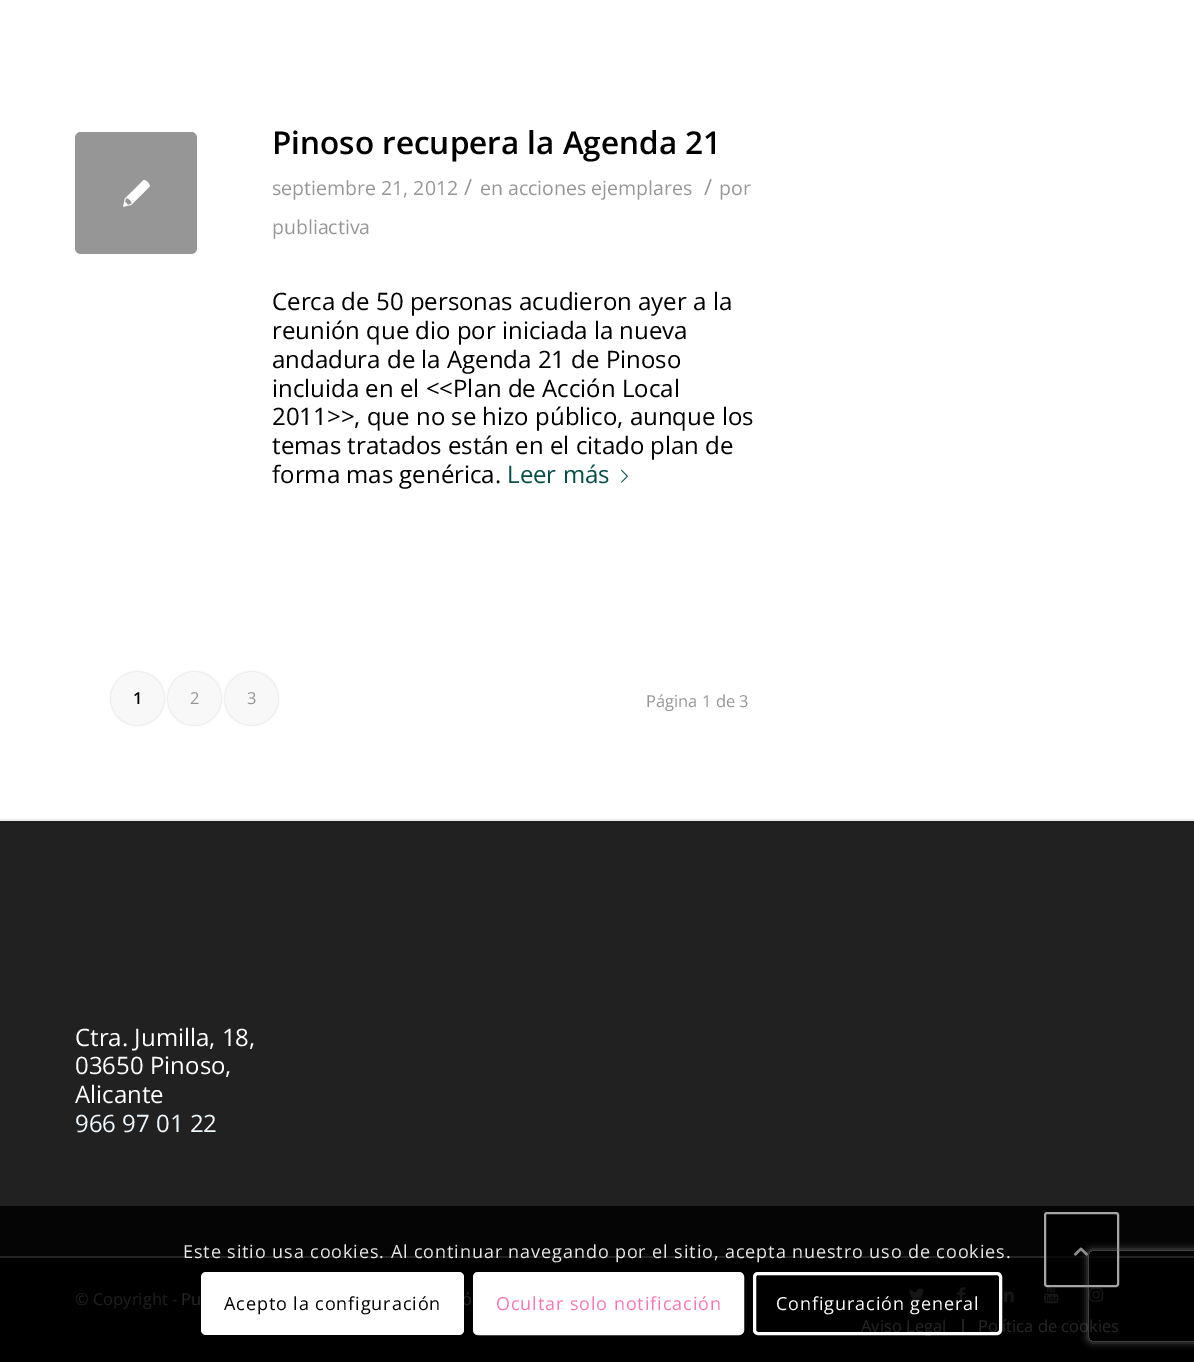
%!PS
<< /PageSize [1194 1362] /PageUsesTransparency true >> setpagedevice
/alpha { dup .setfillconstantalpha .setstrokeconstantalpha } def
/roundrect { 5 dict begin { /r /h /w /y /x } { exch def } forall
  x r add y moveto x w add y 2 copy h add r arct x w add y h add x 1 index r arct
  x y h add x y r arct x y 2 copy exch w add exch r arct closepath end } def
/shadow { 12 dict begin { /a /b /q /h /w /y /x } { exch def } forall gsave /was 0 def
  9 -2 -9 { dup b mul 4 div /e exch def 1 sub .425 mul 2.718 exch exp 1 add a .99 .min exch div /now exch def
    1 1 now sub 1 was sub div sub alpha /was now def
    w h .min e 2 mul add 0 gt { x e sub y e sub w e 2 mul add h e 2 mul add
      q e add b .6 mul add w h .min 2 div e add .min 0 .max roundrect fill } if } for grestore end } def
/picture { 5 dict begin { /h /w /y /x /name } { exch def } forall
  gsave x y translate w h scale
  w h 8 [w 0 0 h 0 0] name (r) file false 3 colorimage grestore end } def
0 .pushpdf14devicefilter
0 1362 translate 1 -1 scale
4 setmiterlimit
1 setgray
0 0 1194 1362 rectfill
0.588 setgray
75 132 122 122 6 roundrect fill
(img1.rgb) 123 180 27 27 picture
/OpenSans-SemiBold [31.5 0 0 -31.5 0 0] selectfont
0 setgray
272 154 moveto (Pinoso recupera la Agenda 21) show
/OpenSans-Regular [19.5 0 0 -19.5 0 0] selectfont
0.588 setgray
272 195 moveto (septiembre 21, 2012) show
/OpenSans-Regular [22 0 0 -22 0 0] selectfont
464 195 moveto (/) show
/OpenSans-Regular [19.5 0 0 -19.5 0 0] selectfont
480 195 moveto (en acciones ejemplares) show
/OpenSans-Regular [22 0 0 -22 0 0] selectfont
704 195 moveto (/) show
/OpenSans-Regular [19.5 0 0 -19.5 0 0] selectfont
719 195 moveto (por) show
272 234 moveto (publiactiva) show
/OpenSans-Regular [24 0 0 -24 0 0] selectfont
0 setgray
272 310 moveto (Cerca de 50 personas acudieron ayer a la) show
272 339 moveto (reunión que dio por iniciada la nueva) show
272 368 moveto (andadura de la Agenda 21 de Pinoso) show
272 397 moveto (incluida en el <<Plan de Acción Local) show
272 425 moveto (2011>>, que no se hizo público, aunque los) show
272 454 moveto (temas tratados están en el citado plan de) show
272 483 moveto (forma mas genérica.) show
0.024 0.31 0.286 setrgbcolor
507 483 moveto (Leer más) show
(img2.rgb) 621 469 7 14 picture
0 setgray
111 672 53 53 26.5 1 0.2 shadow
0.973 setgray
newpath 137.5 698.5 26.5 0 360 arc closepath fill
/OpenSans-SemiBold [16.5 0 0 -16.5 0 0] selectfont
0 setgray
133 704 moveto (1) show
168 672 53 53 26.5 1 0.2 shadow
0.973 setgray
newpath 194.5 698.5 26.5 0 360 arc closepath fill
/OpenSans-Regular [16.5 0 0 -16.5 0 0] selectfont
0.588 setgray
190 704 moveto (2) show
0 setgray
225 672 53 53 26.5 1 0.2 shadow
0.973 setgray
newpath 251.5 698.5 26.5 0 360 arc closepath fill
0.588 setgray
247 704 moveto (3) show
646 707 moveto (Página 1 de 3) show
0.129 setgray
0 821 1194 385 rectfill
0.02 setgray
0 1206 1194 50 rectfill
0.922 setgray
0 819 1194 2 rectfill
/OpenSans-Regular [24 0 0 -24 0 0] selectfont
1 setgray
75 1046 moveto (Ctra. Jumilla, 18,) show
75 1074 moveto (03650 Pinoso,) show
75 1103 moveto (Alicante) show
0.941 0.973 1 setrgbcolor
75 1132 moveto (966 97 01 22) show
0 setgray
0 1258 1194 104 rectfill
0.137 setgray
0 1256 1194 2 rectfill
/OpenSans-Regular [16.5 0 0 -16.5 0 0] selectfont
0.122 setgray
75 1305 moveto (© Copyright -) show
0.149 setgray
181 1305 moveto (Pu) show
462 1305 moveto (ó) show
(img3.rgb) 909 1288 15 13 picture
(img4.rgb) 957 1287 9 16 picture
(img5.rgb) 1002 1288 12 14 picture
(img6.rgb) 1044 1286 15 18 picture
(img7.rgb) 1089 1287 15 15 picture
861 1332 moveto (Aviso Legal) show
0.137 setgray
962 1319 2 15 rectfill
0.149 setgray
978 1332 moveto (Política de cookies) show
0.7 alpha
0 setgray
1044 1212 75 75 3 roundrect fill
0.922 setgray
2 setlinewidth
1045 1213 73 73 2 roundrect stroke
1 alpha
(img8.rgb) 1074 1247 14 9 picture
/OpenSans-Regular [18 0 0 -18 0 0] selectfont
0.906 setgray
183 1258 moveto 0.9 0 (Este sitio usa cookies. Al continuar navegando por el sitio, acepta nuestro uso de cookies.) ashow
1 setgray
201 1272 263 63 5 roundrect fill
0 setgray
224 1310 moveto 0.9 0 (Acepto la configuración) ashow
1 setgray
474.5 1273.5 268 60 3.5 roundrect gsave fill grestore
3 setlinewidth
stroke
1 0.459 0.71 setrgbcolor
496 1310 moveto 0.9 0 (Ocultar solo notificación) ashow
1 setgray
754.5 1273.5 246 60 3.5 roundrect stroke
776 1310 moveto 0.9 0 (Configuración general) ashow
gsave
newpath 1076 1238 moveto 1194 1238 lineto 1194 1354 lineto 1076 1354 lineto closepath 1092 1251 moveto 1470 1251 lineto 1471.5 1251 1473 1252.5 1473 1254 curveto 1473 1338 lineto 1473 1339.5 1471.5 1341 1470 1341 curveto 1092 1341 lineto 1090.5 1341 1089 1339.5 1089 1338 curveto 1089 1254 lineto 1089 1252.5 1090.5 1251 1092 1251 curveto closepath eoclip newpath
0.502 setgray
1089 1251 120 90 3 4 1 shadow
grestore
.poppdf14devicefilter showpage
